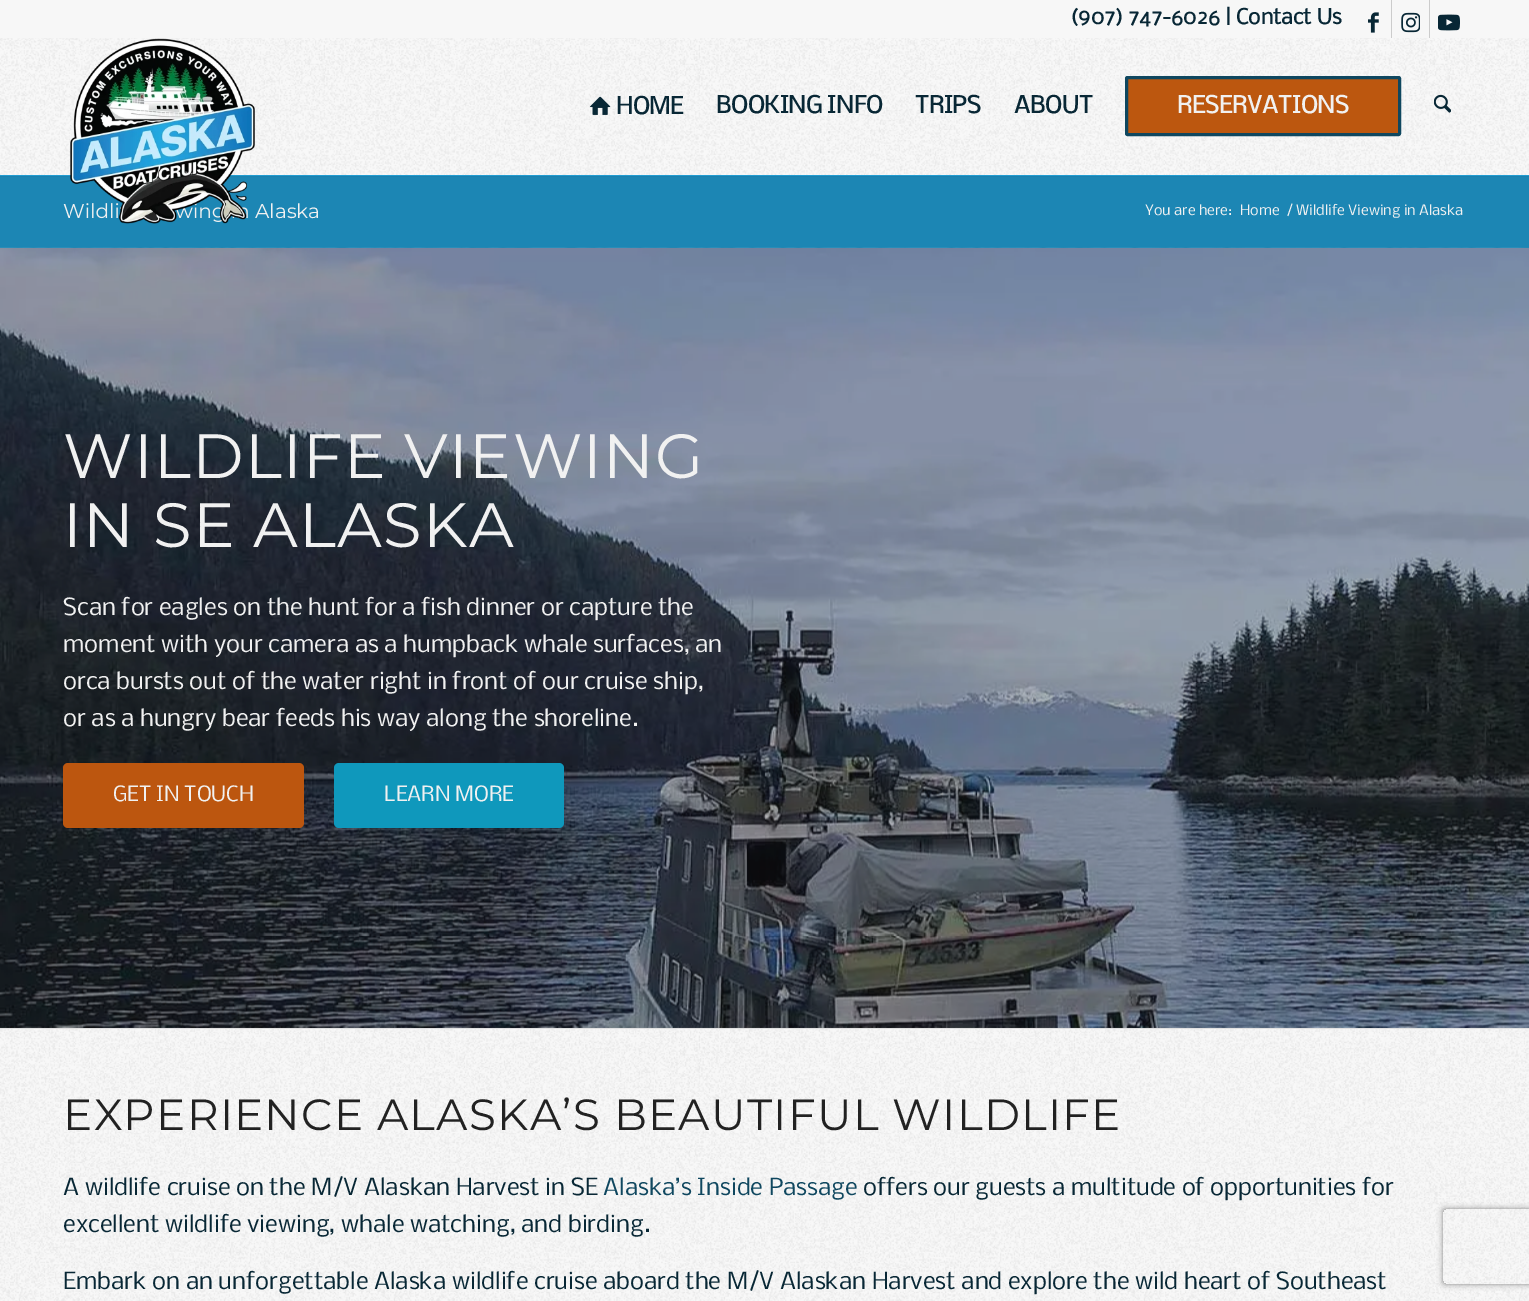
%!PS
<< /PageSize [1529 1301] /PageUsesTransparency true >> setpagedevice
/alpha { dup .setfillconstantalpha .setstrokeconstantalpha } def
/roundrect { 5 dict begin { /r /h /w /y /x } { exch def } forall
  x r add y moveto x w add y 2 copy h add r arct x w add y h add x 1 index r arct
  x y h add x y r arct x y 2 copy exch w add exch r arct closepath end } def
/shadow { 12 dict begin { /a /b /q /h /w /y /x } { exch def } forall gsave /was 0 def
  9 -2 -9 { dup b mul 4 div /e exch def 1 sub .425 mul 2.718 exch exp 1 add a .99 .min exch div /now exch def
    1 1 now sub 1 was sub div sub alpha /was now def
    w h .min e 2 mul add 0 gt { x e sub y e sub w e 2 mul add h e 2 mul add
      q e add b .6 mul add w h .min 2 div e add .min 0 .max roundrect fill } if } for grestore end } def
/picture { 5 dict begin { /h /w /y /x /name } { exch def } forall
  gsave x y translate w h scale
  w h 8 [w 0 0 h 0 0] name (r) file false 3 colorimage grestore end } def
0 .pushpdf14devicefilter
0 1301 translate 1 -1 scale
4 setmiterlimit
0.969 setgray
0 0 1529 1301 rectfill
0.11 0.525 0.706 setrgbcolor
0 176 1529 72 rectfill
0.141 0.659 0.878 setrgbcolor
0 175 1529 1 rectfill
gsave
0 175 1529 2 rectclip
0 setgray
-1 -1 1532 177 0 1 0.1 shadow
grestore
/Nobile-Bold [20 0 0 -20 0 0] selectfont
0.031 0.153 0.208 setrgbcolor
1070 24 moveto (\(907\) 747-6026 | Contact Us) show
0.8 setgray
1391 0 1 38 rectfill
(img1.rgb) 1368 12 11 21 picture
1429 0 1 38 rectfill
(img2.rgb) 1401 12 19 21 picture
(img3.rgb) 1438 14 22 17 picture
(img4.rgb) 0 38 1529 137 picture
/Montserrat-Thin [20 0 0 -20 0 0] selectfont
0.945 setgray
63 218 moveto (Wildli) show
198 218 moveto (n) show
255 218 moveto (Alaska) show
(img5.rgb) 70 38 185 186 picture
(img6.rgb) 590 96 21 19 picture
/Nobile-Bold [22.5 0 0 -22.5 0 0] selectfont
0.031 0.153 0.208 setrgbcolor
616 114 moveto (HOME) show
716 113 moveto (BOOKING INFO) show
915 113 moveto (TRIPS) show
1014 113 moveto (ABOUT) show
0.737 0.341 0.059 setrgbcolor
1126.5 77.5 273 57 1 roundrect gsave fill grestore
0.059 0.278 0.373 setrgbcolor
3 setlinewidth
stroke
0.945 setgray
1177 113 moveto (RESERVATIONS) show
(img7.rgb) 1434 94 17 19 picture
/Nobile-Regular [13.75 0 0 -13.75 0 0] selectfont
1145 215 moveto (You are here:) show
1240 215 moveto (Home) show
1286 215 moveto (/) show
1296 215 moveto (Wildlife Viewing in Alaska) show
(img8.rgb) 0 247 1529 1 picture
(img9.rgb) 0 248 1529 780 picture
(img10.rgb) 0 1027 1529 274 picture
0.3 alpha
0.129 setgray
0 248 1529 780 rectfill
/Montserrat-Thin [62.5 0 0 -62.5 0 0] selectfont
1 alpha
0.945 setgray
63 478 moveto 1.25 0 (WILDLIFE VIEWING) ashow
63 547 moveto 1.25 0 (IN SE ALASKA) ashow
/Nobile-Regular [22.5 0 0 -22.5 0 0] selectfont
63 615 moveto (Scan for eagles on the hunt for a fish dinner or capture the) show
63 652 moveto (moment with your camera as a humpback whale surfaces, an) show
63 689 moveto (orca bursts out of the water right in front of our cruise ship,) show
63 726 moveto (or as a hungry bear feeds his way along the shoreline.) show
0.737 0.337 0.059 setrgbcolor
63 763 241 65 5 roundrect fill
/Nobile-Regular [20 0 0 -20 0 0] selectfont
0.945 setgray
113 801 moveto (GET IN TOUCH) show
0.059 0.596 0.737 setrgbcolor
334 763 230 65 5 roundrect fill
0.945 setgray
384 801 moveto (LEARN MORE) show
0.882 setgray
0 1028 1529 1 rectfill
/Montserrat-Thin [43.75 0 0 -43.75 0 0] selectfont
0.133 setgray
63 1130 moveto 1.25 0 (EXPERIENCE ALASKA’S BEAUTIFUL WILDLIFE) ashow
/Nobile-Regular [22.5 0 0 -22.5 0 0] selectfont
0.031 0.153 0.208 setrgbcolor
63 1195 moveto (A wildlife cruise on the M/V Alaskan Harvest in SE) show
0.059 0.278 0.373 setrgbcolor
603 1195 moveto (Alaska’s Inside Passage) show
0.031 0.153 0.208 setrgbcolor
863 1195 moveto (offers our guests a multitude of opportunities for) show
63 1232 moveto (excellent wildlife viewing, whale watching, and birding.) show
63 1289 moveto (Embark on an unforgettable Alaska wildlife cruise aboard the M/V Alaskan Harvest and explore the wild heart of Southeast) show
gsave
newpath 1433 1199 moveto 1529 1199 lineto 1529 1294 lineto 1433 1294 lineto closepath 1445.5 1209 moveto 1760.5 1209 lineto 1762 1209 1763 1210 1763 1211.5 curveto 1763 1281.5 lineto 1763 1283 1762 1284 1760.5 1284 curveto 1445.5 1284 lineto 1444 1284 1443 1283 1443 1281.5 curveto 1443 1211.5 lineto 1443 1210 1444 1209 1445.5 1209 curveto closepath eoclip newpath
0.502 setgray
1443 1209 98 75 2.5 3 1 shadow
grestore
.poppdf14devicefilter showpage
